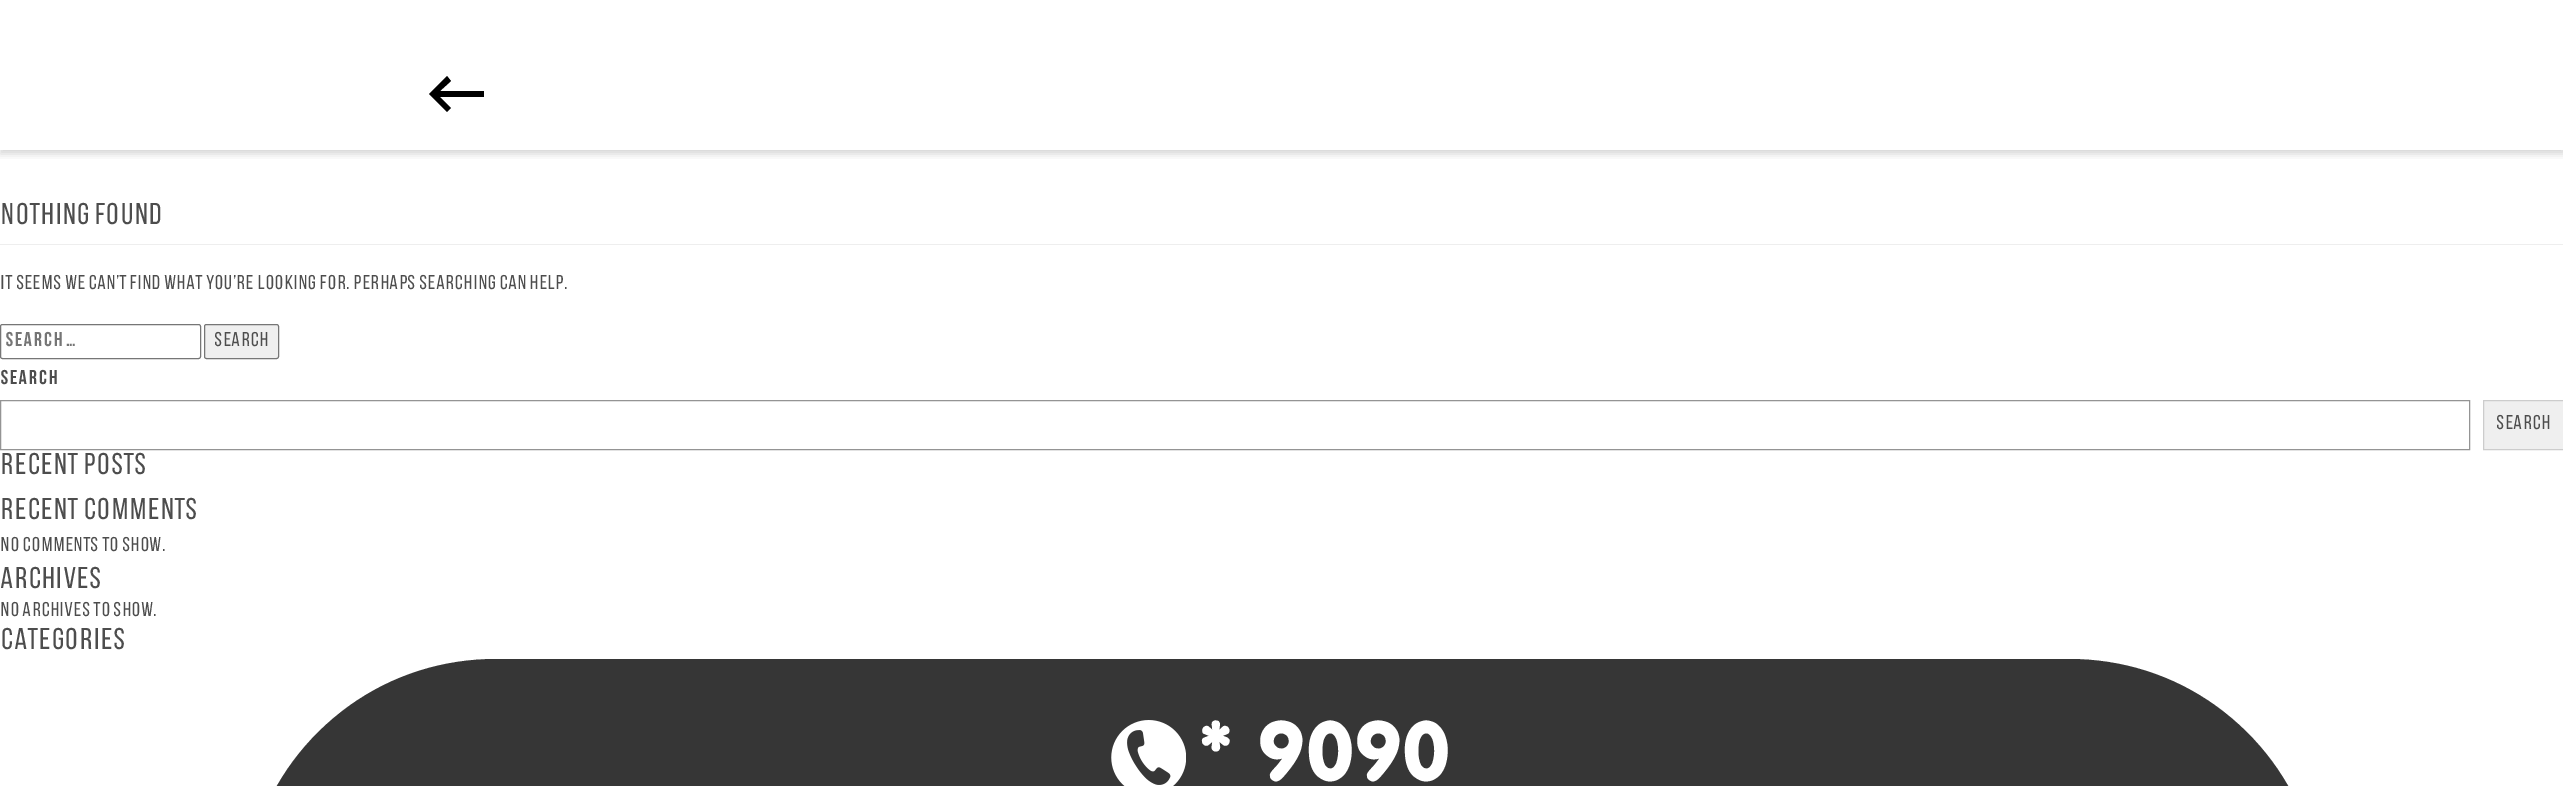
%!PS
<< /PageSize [2563 786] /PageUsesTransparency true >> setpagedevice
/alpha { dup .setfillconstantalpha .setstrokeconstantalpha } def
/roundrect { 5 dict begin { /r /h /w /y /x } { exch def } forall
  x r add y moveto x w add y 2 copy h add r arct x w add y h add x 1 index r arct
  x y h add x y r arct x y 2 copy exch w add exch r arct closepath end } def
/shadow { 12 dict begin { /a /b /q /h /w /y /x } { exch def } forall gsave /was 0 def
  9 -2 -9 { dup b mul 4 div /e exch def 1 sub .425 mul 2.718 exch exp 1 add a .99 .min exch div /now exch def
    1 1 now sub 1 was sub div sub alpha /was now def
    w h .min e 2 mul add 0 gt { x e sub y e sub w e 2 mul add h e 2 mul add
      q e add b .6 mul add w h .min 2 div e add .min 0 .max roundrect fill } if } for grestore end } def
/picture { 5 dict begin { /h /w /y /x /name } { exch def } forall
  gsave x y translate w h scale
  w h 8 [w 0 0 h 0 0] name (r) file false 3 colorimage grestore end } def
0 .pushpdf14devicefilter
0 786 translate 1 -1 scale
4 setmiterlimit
1 setgray
0 0 2563 786 rectfill
gsave
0 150 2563 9 rectclip
0 setgray
0 4 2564 150 0 4 0.16 shadow
grestore
0 setgray
newpath 484 91 moveto 440 91 lineto 451 81 lineto 447 76 lineto 429 94 lineto 447 112 lineto 451 108 lineto 440 97 lineto 484 97 lineto closepath fill
0.933 setgray
0 244 2563 1 rectfill
/BebasNeue-Regular [30 0 0 -30 0 0] selectfont
0.302 setgray
0 224 moveto (Nothing Found) show
/BebasNeue-Regular [20 0 0 -20 0 0] selectfont
0 289 moveto (It seems we can’t find what you’re looking for. Perhaps searching can help.) show
0.463 setgray
0.5 324.5 200 34 2 roundrect stroke
/BebasNeue-Bold [20 0 0 -20 0 0] selectfont
0.459 setgray
5 346 moveto (Search …) show
0.937 setgray
204.5 324.5 74 34 2 roundrect gsave fill grestore
0.463 setgray
stroke
/BebasNeue-Regular [20 0 0 -20 0 0] selectfont
0.302 setgray
214 346 moveto (Search) show
/BebasNeue-Bold [20 0 0 -20 0 0] selectfont
0 384 moveto (Search) show
0.58 setgray
0.5 400.5 2469 49 rectstroke
0.937 setgray
newpath 2483.5 400.5 moveto 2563.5 400.5 lineto 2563.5 449.5 lineto 2483.5 449.5 lineto closepath gsave fill grestore
0.8 setgray
stroke
/BebasNeue-Regular [20 0 0 -20 0 0] selectfont
0.302 setgray
2496 429 moveto (Search) show
/BebasNeue-Regular [30 0 0 -30 0 0] selectfont
0 474 moveto (Recent Posts) show
0 519 moveto (Recent Comments) show
/BebasNeue-Regular [20 0 0 -20 0 0] selectfont
0 551 moveto (No comments to show.) show
/BebasNeue-Regular [30 0 0 -30 0 0] selectfont
0 588 moveto (Archives) show
/BebasNeue-Regular [20 0 0 -20 0 0] selectfont
0 616 moveto (No archives to show.) show
/BebasNeue-Regular [30 0 0 -30 0 0] selectfont
0 649 moveto (Categories) show
0.212 setgray
newpath 159 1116 moveto 2406 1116 lineto 2308 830 lineto 2291 780 2259 737 2216 706 curveto 2173 675 2122 659 2069 659 curveto 496 659 lineto 443 659 392 675 349 706 curveto 306 737 274 780 257 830 curveto closepath fill
(img1.rgb) 1111 720 75 66 picture
/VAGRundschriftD-Regular [87.5 0 0 -87.5 0 0] selectfont
1 setgray
1199 780 moveto 1.75 0 (* 9090) ashow
.poppdf14devicefilter showpage
